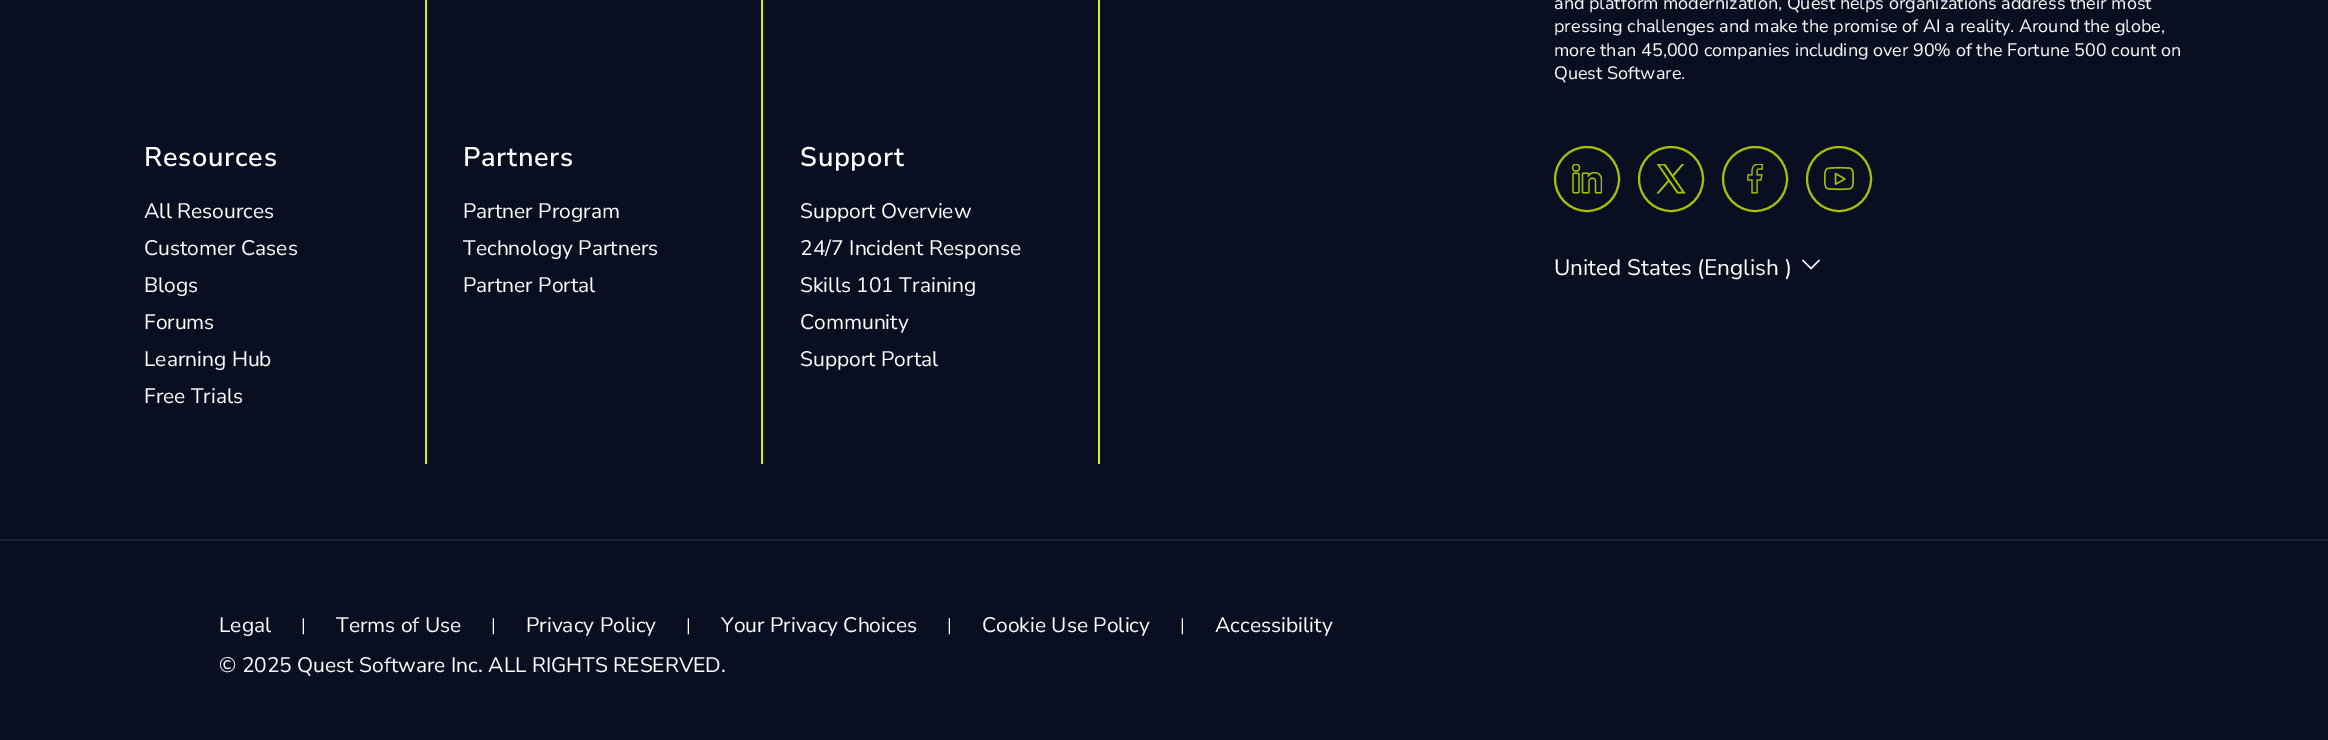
%!PS
<< /PageSize [2328 740] >> setpagedevice
/picture { 5 dict begin { /h /w /y /x /name } { exch def } forall
  gsave x y translate w h scale
  w h 8 [w 0 0 h 0 0] name (r) file false 3 colorimage grestore end } def
0 740 translate 1 -1 scale
4 setmiterlimit
0.039 0.055 0.129 setrgbcolor
0 0 2328 740 rectfill
/NunitoSans-SemiBold [27 0 0 -27 0 0] selectfont
1 setgray
144 166 moveto 0.75 0 (Resources) ashow
/NunitoSans-Regular [21 0 0 -21 0 0] selectfont
144 218 moveto (All Resources) show
144 255 moveto (Customer Cases) show
144 292 moveto (Blogs) show
144 329 moveto (Forums) show
144 366 moveto (Learning Hub) show
144 403 moveto (Free Trials) show
0.843 0.949 0.047 setrgbcolor
425 0 2 464 rectfill
/NunitoSans-SemiBold [27 0 0 -27 0 0] selectfont
1 setgray
463 166 moveto 0.75 0 (Partners) ashow
/NunitoSans-Regular [21 0 0 -21 0 0] selectfont
463 218 moveto (Partner Program) show
463 255 moveto (Technology Partners) show
463 292 moveto (Partner Portal) show
0.843 0.949 0.047 setrgbcolor
761 0 2 464 rectfill
/NunitoSans-SemiBold [27 0 0 -27 0 0] selectfont
1 setgray
800 166 moveto 0.75 0 (Support) ashow
/NunitoSans-Regular [21 0 0 -21 0 0] selectfont
800 218 moveto (Support Overview) show
800 255 moveto (24/7 Incident Response) show
800 292 moveto (Skills 101 Training) show
800 329 moveto (Community) show
800 366 moveto (Support Portal) show
0.843 0.949 0.047 setrgbcolor
1098 0 2 464 rectfill
/NunitoSans-Regular [18 0 0 -18 0 0] selectfont
1 setgray
1554 9 moveto (and platform modernization, Quest helps organizations address their most) show
1554 32 moveto (pressing challenges and make the promise of AI a reality. Around the globe,) show
1554 56 moveto (more than 45,000 companies including over 90% of the Fortune 500 count on) show
1554 79 moveto (Quest Software.) show
0.663 0.749 0.016 setrgbcolor
2 setlinewidth
newpath 1587 179 32 0 360 arc closepath stroke
(img1.rgb) 1572 164 30 30 picture
newpath 1671 179 32 0 360 arc closepath stroke
(img2.rgb) 1656 164 30 30 picture
newpath 1755 179 32 0 360 arc closepath stroke
(img3.rgb) 1747 164 16 30 picture
newpath 1839 179 32 0 360 arc closepath stroke
(img4.rgb) 1824 166 30 25 picture
/NunitoSans-Regular [22.5 0 0 -22.5 0 0] selectfont
1 setgray
1554 275 moveto (United States \(English \)) show
newpath 1819 259.5 moveto 1811 267.5 lineto 1803 259.5 lineto 1802 260.5 lineto 1811 269.5 lineto 1820 260.5 lineto closepath fill
0.102 0.122 0.208 setrgbcolor
0 539 2328 2 rectfill
/NunitoSans-Regular [21 0 0 -21 0 0] selectfont
1 setgray
219 632 moveto (Legal) show
/NunitoSans-Regular [18 0 0 -18 0 0] selectfont
301 631 moveto (|) show
/NunitoSans-Regular [21 0 0 -21 0 0] selectfont
336 632 moveto (Terms of Use) show
/NunitoSans-Regular [18 0 0 -18 0 0] selectfont
491 631 moveto (|) show
/NunitoSans-Regular [21 0 0 -21 0 0] selectfont
526 632 moveto (Privacy Policy) show
/NunitoSans-Regular [18 0 0 -18 0 0] selectfont
686 631 moveto (|) show
/NunitoSans-Regular [21 0 0 -21 0 0] selectfont
721 632 moveto (Your Privacy Choices) show
/NunitoSans-Regular [18 0 0 -18 0 0] selectfont
947 631 moveto (|) show
/NunitoSans-Regular [21 0 0 -21 0 0] selectfont
982 632 moveto (Cookie Use Policy) show
/NunitoSans-Regular [18 0 0 -18 0 0] selectfont
1180 631 moveto (|) show
/NunitoSans-Regular [21 0 0 -21 0 0] selectfont
1215 632 moveto (Accessibility) show
219 672 moveto (© 2025 Quest Software Inc. ALL RIGHTS RESERVED.) show
showpage
